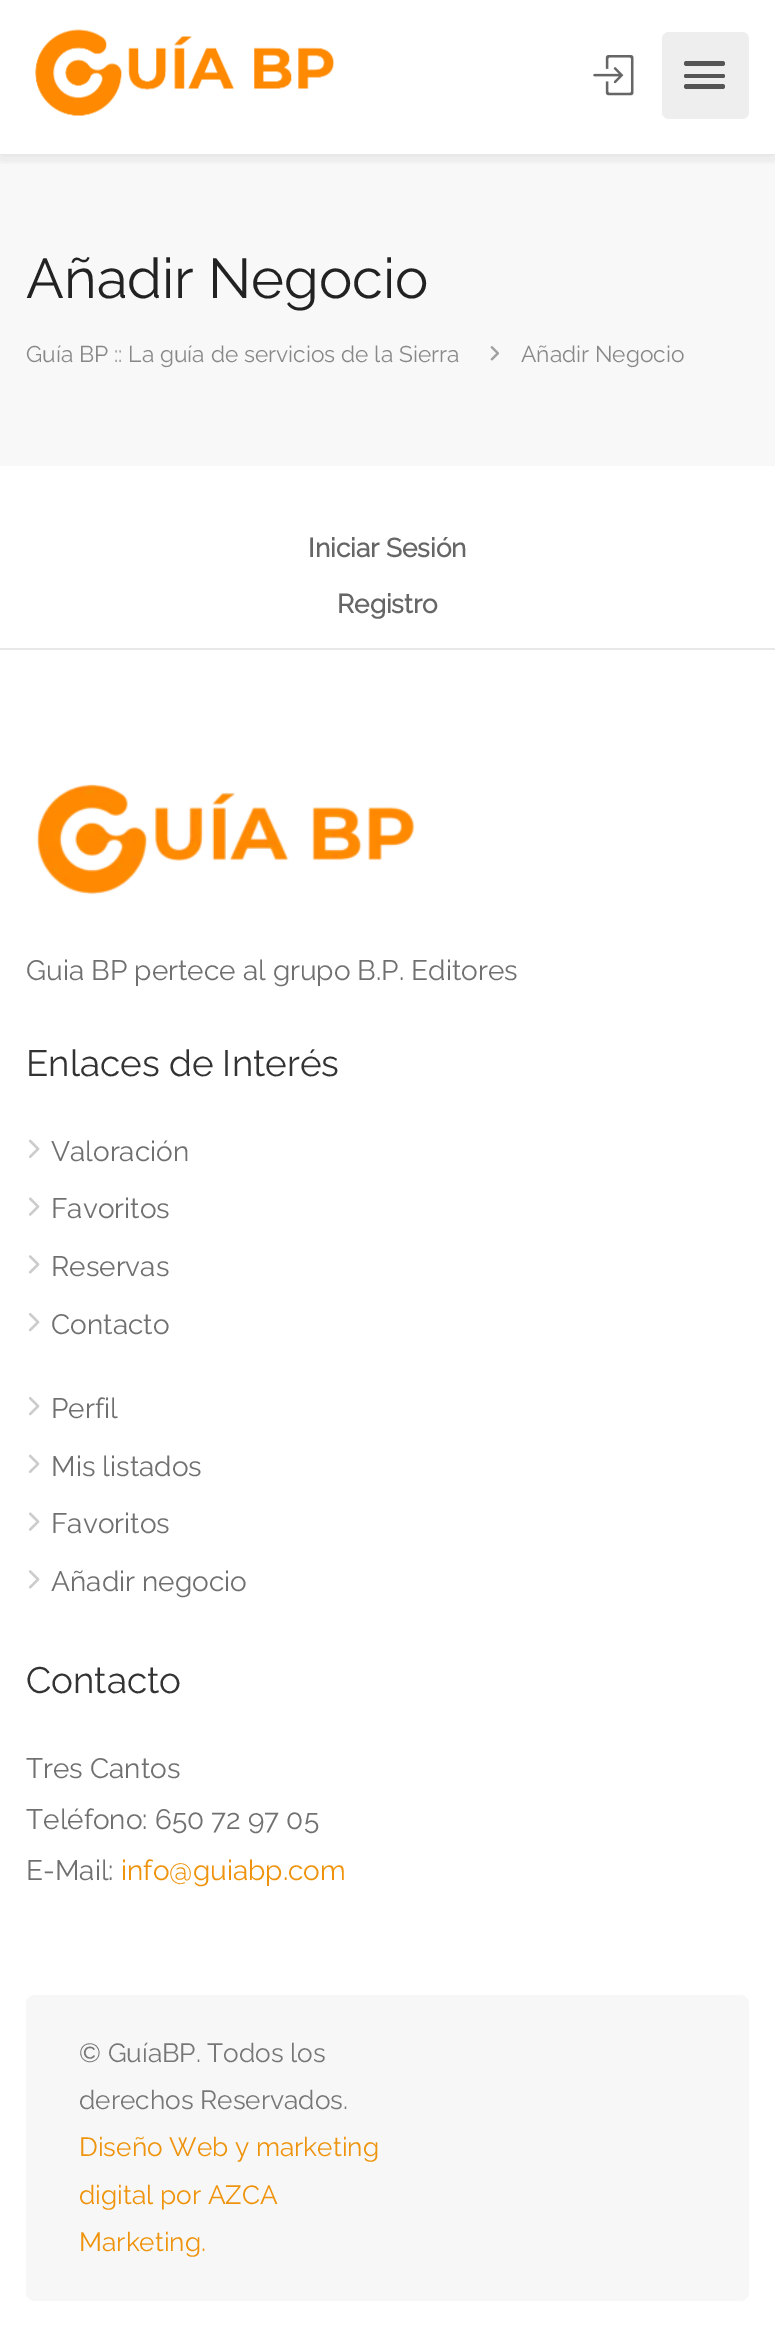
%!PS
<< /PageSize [775 2335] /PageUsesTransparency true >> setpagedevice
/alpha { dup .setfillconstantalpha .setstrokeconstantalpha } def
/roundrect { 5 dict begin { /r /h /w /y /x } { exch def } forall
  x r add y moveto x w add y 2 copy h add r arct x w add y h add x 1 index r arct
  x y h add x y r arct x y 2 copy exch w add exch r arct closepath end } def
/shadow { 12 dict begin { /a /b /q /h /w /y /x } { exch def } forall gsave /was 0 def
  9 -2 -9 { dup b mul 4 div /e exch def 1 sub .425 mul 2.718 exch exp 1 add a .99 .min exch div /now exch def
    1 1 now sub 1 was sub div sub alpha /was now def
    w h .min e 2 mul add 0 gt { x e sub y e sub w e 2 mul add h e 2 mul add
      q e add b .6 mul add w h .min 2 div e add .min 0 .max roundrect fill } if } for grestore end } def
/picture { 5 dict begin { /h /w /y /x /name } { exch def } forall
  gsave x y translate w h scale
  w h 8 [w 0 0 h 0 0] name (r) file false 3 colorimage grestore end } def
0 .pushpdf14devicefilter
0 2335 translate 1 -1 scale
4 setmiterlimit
1 setgray
0 0 775 2335 rectfill
0.973 setgray
0 154 775 312 rectfill
gsave
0 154 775 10 rectclip
0 setgray
0 0 775 154 0 10.5 0.12 shadow
grestore
(img1.rgb) 35 29 300 87 picture
0.933 setgray
662 32 87 87 7 roundrect fill
0.333 setgray
684 84 41 5 2.5 roundrect fill
684 61 41 5 2.5 roundrect fill
684 74 41 4 2 roundrect fill
(img2.rgb) 593 55 41 41 picture
/Raleway-Thin [56 0 0 -56 0 0] selectfont
0.133 setgray
26 298 moveto (Añadir Negocio) show
/Raleway-Thin [22.75 0 0 -22.75 0 0] selectfont
0.533 setgray
26 362 moveto (Guía BP :: La guía de servicios de la Sierra) show
(img3.rgb) 490 346 9 15 picture
521 362 moveto (Añadir Negocio) show
/Raleway-Bold [26.25 0 0 -26.25 0 0] selectfont
0.4 setgray
308 557 moveto (Iniciar Sesión) show
337 613 moveto (Registro) show
0.91 setgray
0 648 775 2 rectfill
(img4.rgb) 36 784 379 111 picture
/Raleway-Thin [28 0 0 -28 0 0] selectfont
0.439 setgray
26 980 moveto (Guia BP pertece al grupo B.P. Editores) show
/Raleway-Thin [36.75 0 0 -36.75 0 0] selectfont
0.2 setgray
26 1076 moveto (Enlaces de Interés) show
(img5.rgb) 29 1139 11 19 picture
/Raleway-Thin [28 0 0 -28 0 0] selectfont
0.439 setgray
51 1161 moveto (Valoración) show
(img6.rgb) 28 1197 12 19 picture
51 1218 moveto (Favoritos) show
(img7.rgb) 28 1255 12 19 picture
51 1276 moveto (Reservas) show
(img8.rgb) 29 1313 11 19 picture
51 1334 moveto (Contacto) show
(img8.rgb) 29 1397 11 19 picture
51 1418 moveto (Perfil) show
(img5.rgb) 29 1454 11 19 picture
51 1476 moveto (Mis listados) show
(img6.rgb) 28 1512 12 19 picture
51 1533 moveto (Favoritos) show
(img7.rgb) 28 1570 12 19 picture
51 1591 moveto (Añadir negocio) show
/Raleway-Thin [36.75 0 0 -36.75 0 0] selectfont
0.2 setgray
26 1693 moveto (Contacto) show
/Raleway-Thin [28 0 0 -28 0 0] selectfont
0.439 setgray
26 1778 moveto (Tres Cantos) show
26 1829 moveto (Teléfono: 650 72 97 05) show
26 1880 moveto (E-Mail:) show
0.933 0.576 0.043 setrgbcolor
121 1880 moveto (info@guiabp.com) show
0.969 setgray
26 1995 723 306 9 roundrect fill
/Raleway-Thin [26.25 0 0 -26.25 0 0] selectfont
0.467 setgray
79 2062 moveto (© GuíaBP. Todos los) show
79 2109 moveto (derechos Reservados.) show
0.933 0.576 0.043 setrgbcolor
79 2156 moveto (Diseño Web y marketing) show
79 2204 moveto (digital por AZCA) show
79 2251 moveto (Marketing.) show
.poppdf14devicefilter showpage
